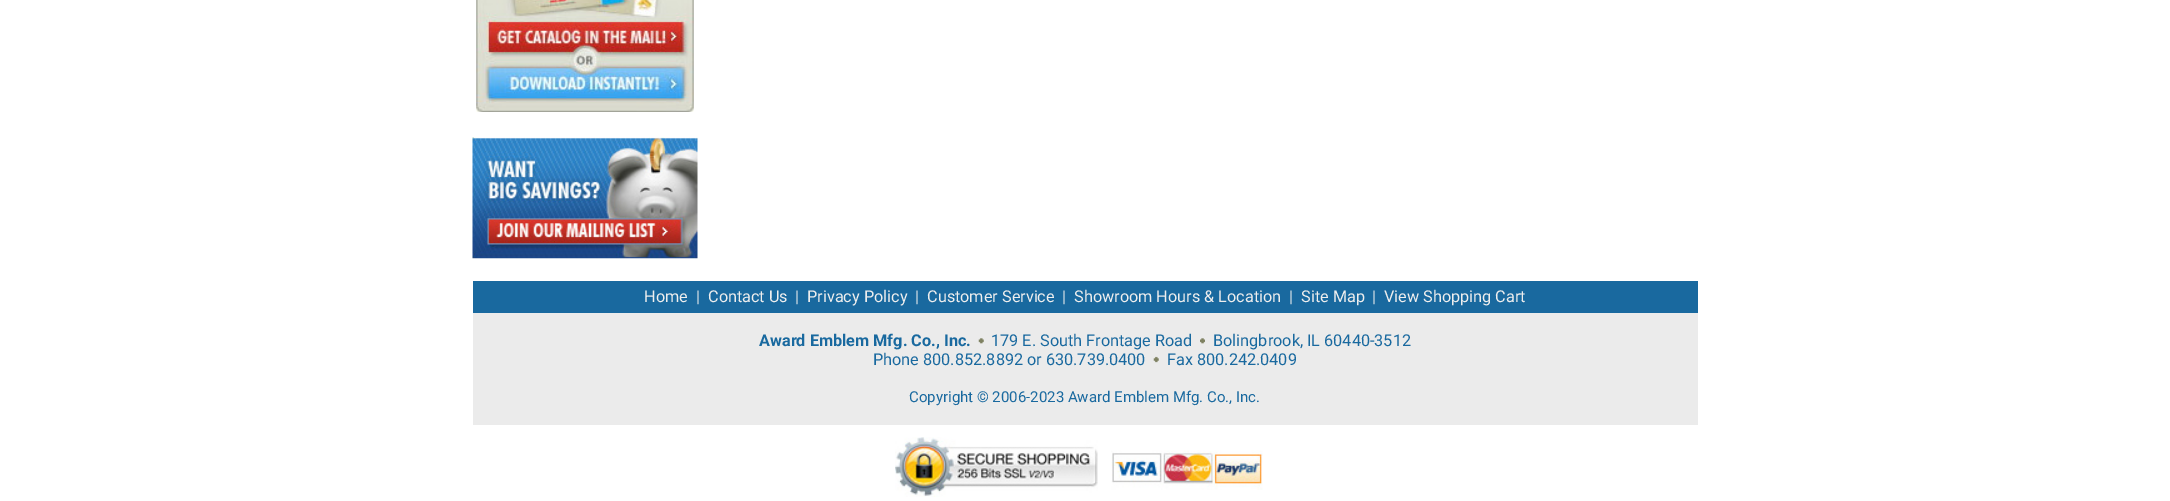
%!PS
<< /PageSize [2170 501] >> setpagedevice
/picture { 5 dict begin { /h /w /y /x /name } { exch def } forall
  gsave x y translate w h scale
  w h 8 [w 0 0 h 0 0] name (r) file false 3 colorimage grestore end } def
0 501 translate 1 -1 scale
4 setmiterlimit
1 setgray
0 0 2170 501 rectfill
(img1.rgb) 476 0 218 112 picture
(img2.rgb) 472 137 226 122 picture
0.922 setgray
473 313 1225 112 rectfill
0.098 0.412 0.624 setrgbcolor
473 281 1225 32 rectfill
/Roboto-Regular [16.25 0 0 -16.25 0 0] selectfont
0.933 setgray
644 302 moveto (Home) show
696 302 moveto (|) show
708 302 moveto (Contact Us) show
795 302 moveto (|) show
807 302 moveto (Privacy Policy) show
915 302 moveto (|) show
927 302 moveto (Customer Service) show
1062 302 moveto (|) show
1074 302 moveto (Showroom Hours & Location) show
1289 302 moveto (|) show
1301 302 moveto (Site Map) show
1372 302 moveto (|) show
1384 302 moveto (View Shopping Cart) show
/Roboto-Bold [16.25 0 0 -16.25 0 0] selectfont
0.098 0.412 0.624 setrgbcolor
759 346 moveto (Award Emblem Mfg. Co., Inc.) show
(img3.rgb) 978 338 6 6 picture
/Roboto-Regular [16.25 0 0 -16.25 0 0] selectfont
991 346 moveto (179 E. South Frontage Road) show
(img4.rgb) 1200 338 5 6 picture
1213 346 moveto (Bolingbrook, IL 60440-3512) show
873 365 moveto (Phone 800.852.8892 or 630.739.0400) show
(img5.rgb) 1153 356 6 7 picture
1167 365 moveto (Fax 800.242.0409) show
/Roboto-Regular [15 0 0 -15 0 0] selectfont
909 402 moveto (Copyright © 2006-2023 Award Emblem Mfg. Co., Inc.) show
(img6.rgb) 895 437 203 60 picture
(img7.rgb) 1111 450 152 40 picture
showpage
